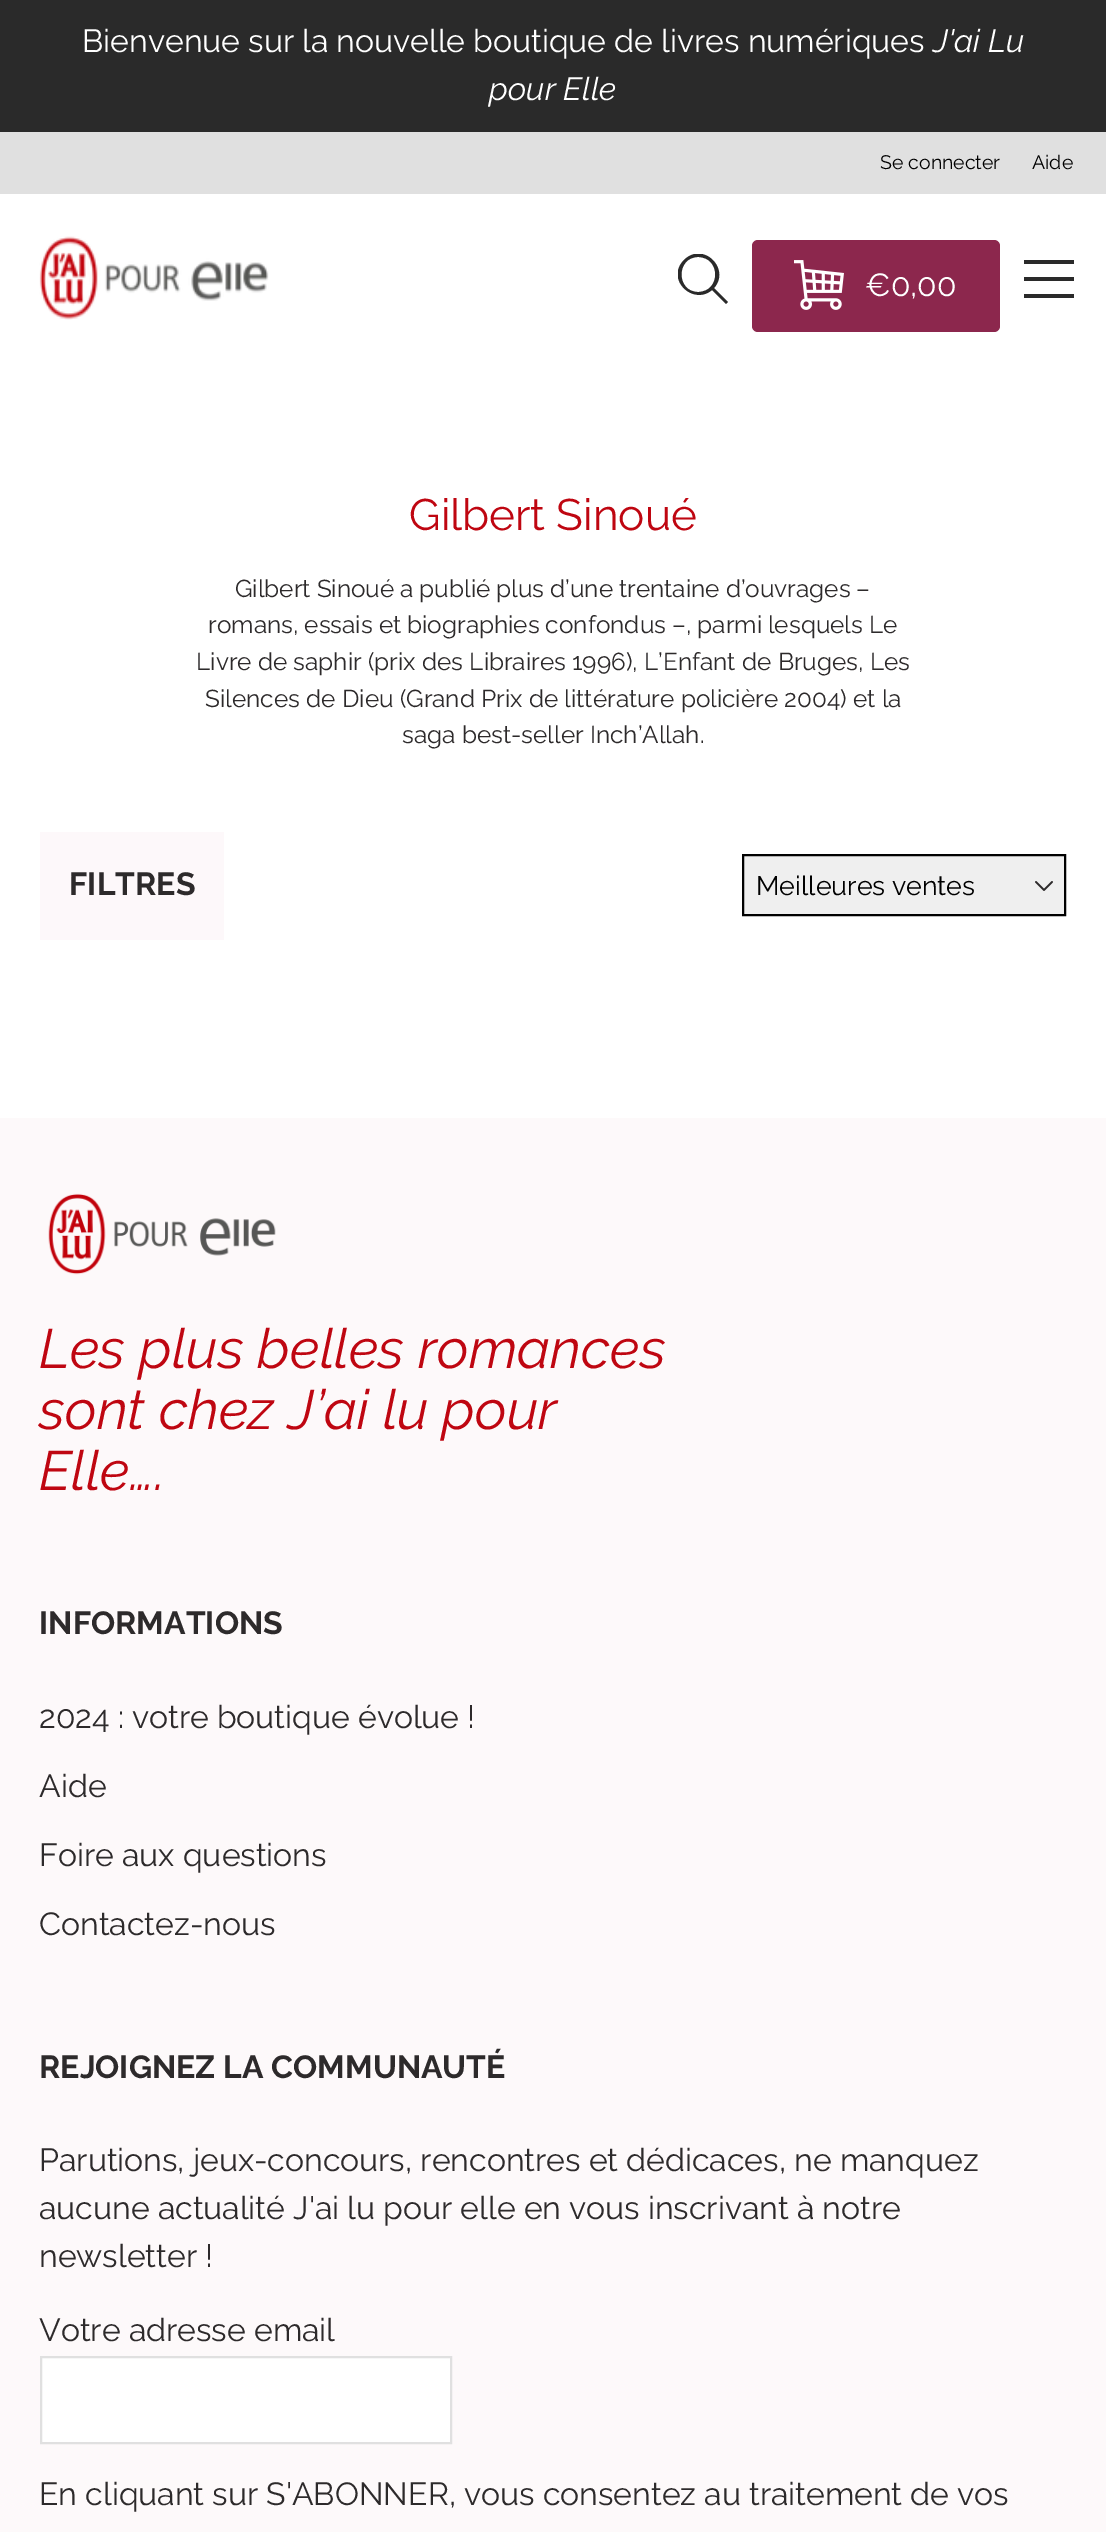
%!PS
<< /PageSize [1106 2532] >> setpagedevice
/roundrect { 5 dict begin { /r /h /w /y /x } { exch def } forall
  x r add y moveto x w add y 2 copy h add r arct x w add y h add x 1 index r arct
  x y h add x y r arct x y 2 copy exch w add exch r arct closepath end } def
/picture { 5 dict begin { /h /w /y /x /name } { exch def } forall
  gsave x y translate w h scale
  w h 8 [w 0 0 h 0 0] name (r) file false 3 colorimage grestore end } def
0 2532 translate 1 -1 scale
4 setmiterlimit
1 setgray
0 0 1106 2532 rectfill
0.165 setgray
0 0 1106 132 rectfill
/Raleway-Regular [32 0 0 -32 0 0] selectfont
1 setgray
82 52 moveto (Bienvenue sur la nouvelle boutique de livres numériques) show
/Raleway-Italic [32 0 0 -32 0 0] selectfont
933 52 moveto (J'ai Lu) show
489 100 moveto (pour Elle) show
0.878 setgray
0 132 1106 62 rectfill
/Raleway-Regular [19.5 0 0 -19.5 0 0] selectfont
0 setgray
880 169 moveto (Se connecter) show
1032 169 moveto (Aide) show
(img1.rgb) 39 236 230 84 picture
gsave
678 254 50 50 rectclip
0.165 setgray
newpath 728 302 moveto 714 288 lineto 731 269 703 241 684 260 curveto 665 279 693 306 712 290 curveto 726 304 lineto closepath 698 292 moveto 676 292 676 257 698 257 curveto 721 257 721 292 698 292 curveto closepath fill
grestore
0.549 0.153 0.302 setrgbcolor
752 240 248 92 6 roundrect fill
(img2.rgb) 794 260 50 50 picture
/Raleway-Regular [32 0 0 -32 0 0] selectfont
1 setgray
865 296 moveto (€0,00) show
0.165 setgray
newpath 1024 260 moveto 1074 260 lineto 1074 264 lineto 1024 264 lineto closepath 1024 277 moveto 1074 277 lineto 1074 281 lineto 1024 281 lineto closepath 1024 294 moveto 1074 294 lineto 1074 298 lineto 1024 298 lineto closepath fill
/Raleway-Regular [44 0 0 -44 0 0] selectfont
0.749 0.024 0.067 setrgbcolor
409 530 moveto (Gilbert Sinoué) show
/Raleway-Regular [24.4 0 0 -24.4 0 0] selectfont
0.176 0.165 0.169 setrgbcolor
235 597 moveto -0.25 0 32 (Gilbert Sinoué a publié plus d’une trentaine d’ouvrages –) widthshow
208 633 moveto -0.25 0 32 (romans, essais et biographies confondus –, parmi lesquels Le) widthshow
196 670 moveto (Livre de saphir \(prix des Libraires 1996\), L’Enfant de Bruges, Les) show
205 707 moveto (Silences de Dieu \(Grand Prix de littérature policière 2004\) et la) show
402 743 moveto (saga best-seller Inch’Allah.) show
0.992 0.973 0.98 setrgbcolor
40 832 184 108 rectfill
/Raleway-Bold [32 0 0 -32 0 0] selectfont
0.176 0.165 0.169 setrgbcolor
69 895 moveto (FILTRES) show
0.937 setgray
newpath 743 855 moveto 1065 855 lineto 1065 915 lineto 743 915 lineto closepath gsave fill grestore
0 setgray
2 setlinewidth
stroke
/Raleway-Regular [26.75 0 0 -26.75 0 0] selectfont
756 895 moveto (Meilleures ventes) show
(img3.rgb) 1035 881 18 10 picture
0.992 0.976 0.98 setrgbcolor
0 1118 1106 1414 rectfill
(img4.rgb) 48 1193 228 82 picture
/Raleway-Italic [55.25 0 0 -55.25 0 0] selectfont
0.749 0.024 0.067 setrgbcolor
39 1368 moveto (Les plus belles romances) show
39 1429 moveto (sont chez J’ai lu pour) show
39 1490 moveto (Elle….) show
/Raleway-Bold [32 0 0 -32 0 0] selectfont
0.176 0.165 0.169 setrgbcolor
39 1634 moveto (INFORMATIONS) show
/Raleway-Regular [32 0 0 -32 0 0] selectfont
39 1728 moveto (2024 : votre boutique évolue !) show
39 1797 moveto (Aide) show
39 1866 moveto (Foire aux questions) show
39 1935 moveto (Contactez-nous) show
/Raleway-Bold [32 0 0 -32 0 0] selectfont
39 2078 moveto (REJOIGNEZ LA COMMUNAUTÉ) show
/Raleway-Regular [32 0 0 -32 0 0] selectfont
39 2171 moveto (Parutions, jeux-concours, rencontres et dédicaces, ne manquez) show
39 2219 moveto (aucune actualité J'ai lu pour elle en vous inscrivant à notre) show
39 2267 moveto (newsletter !) show
39 2341 moveto (Votre adresse email) show
1 setgray
newpath 41 2357 moveto 451 2357 lineto 451 2443 lineto 41 2443 lineto closepath gsave fill grestore
0.878 setgray
stroke
0.176 0.165 0.169 setrgbcolor
39 2505 moveto (En cliquant sur S'ABONNER, vous consentez au traitement de vos) show
showpage
